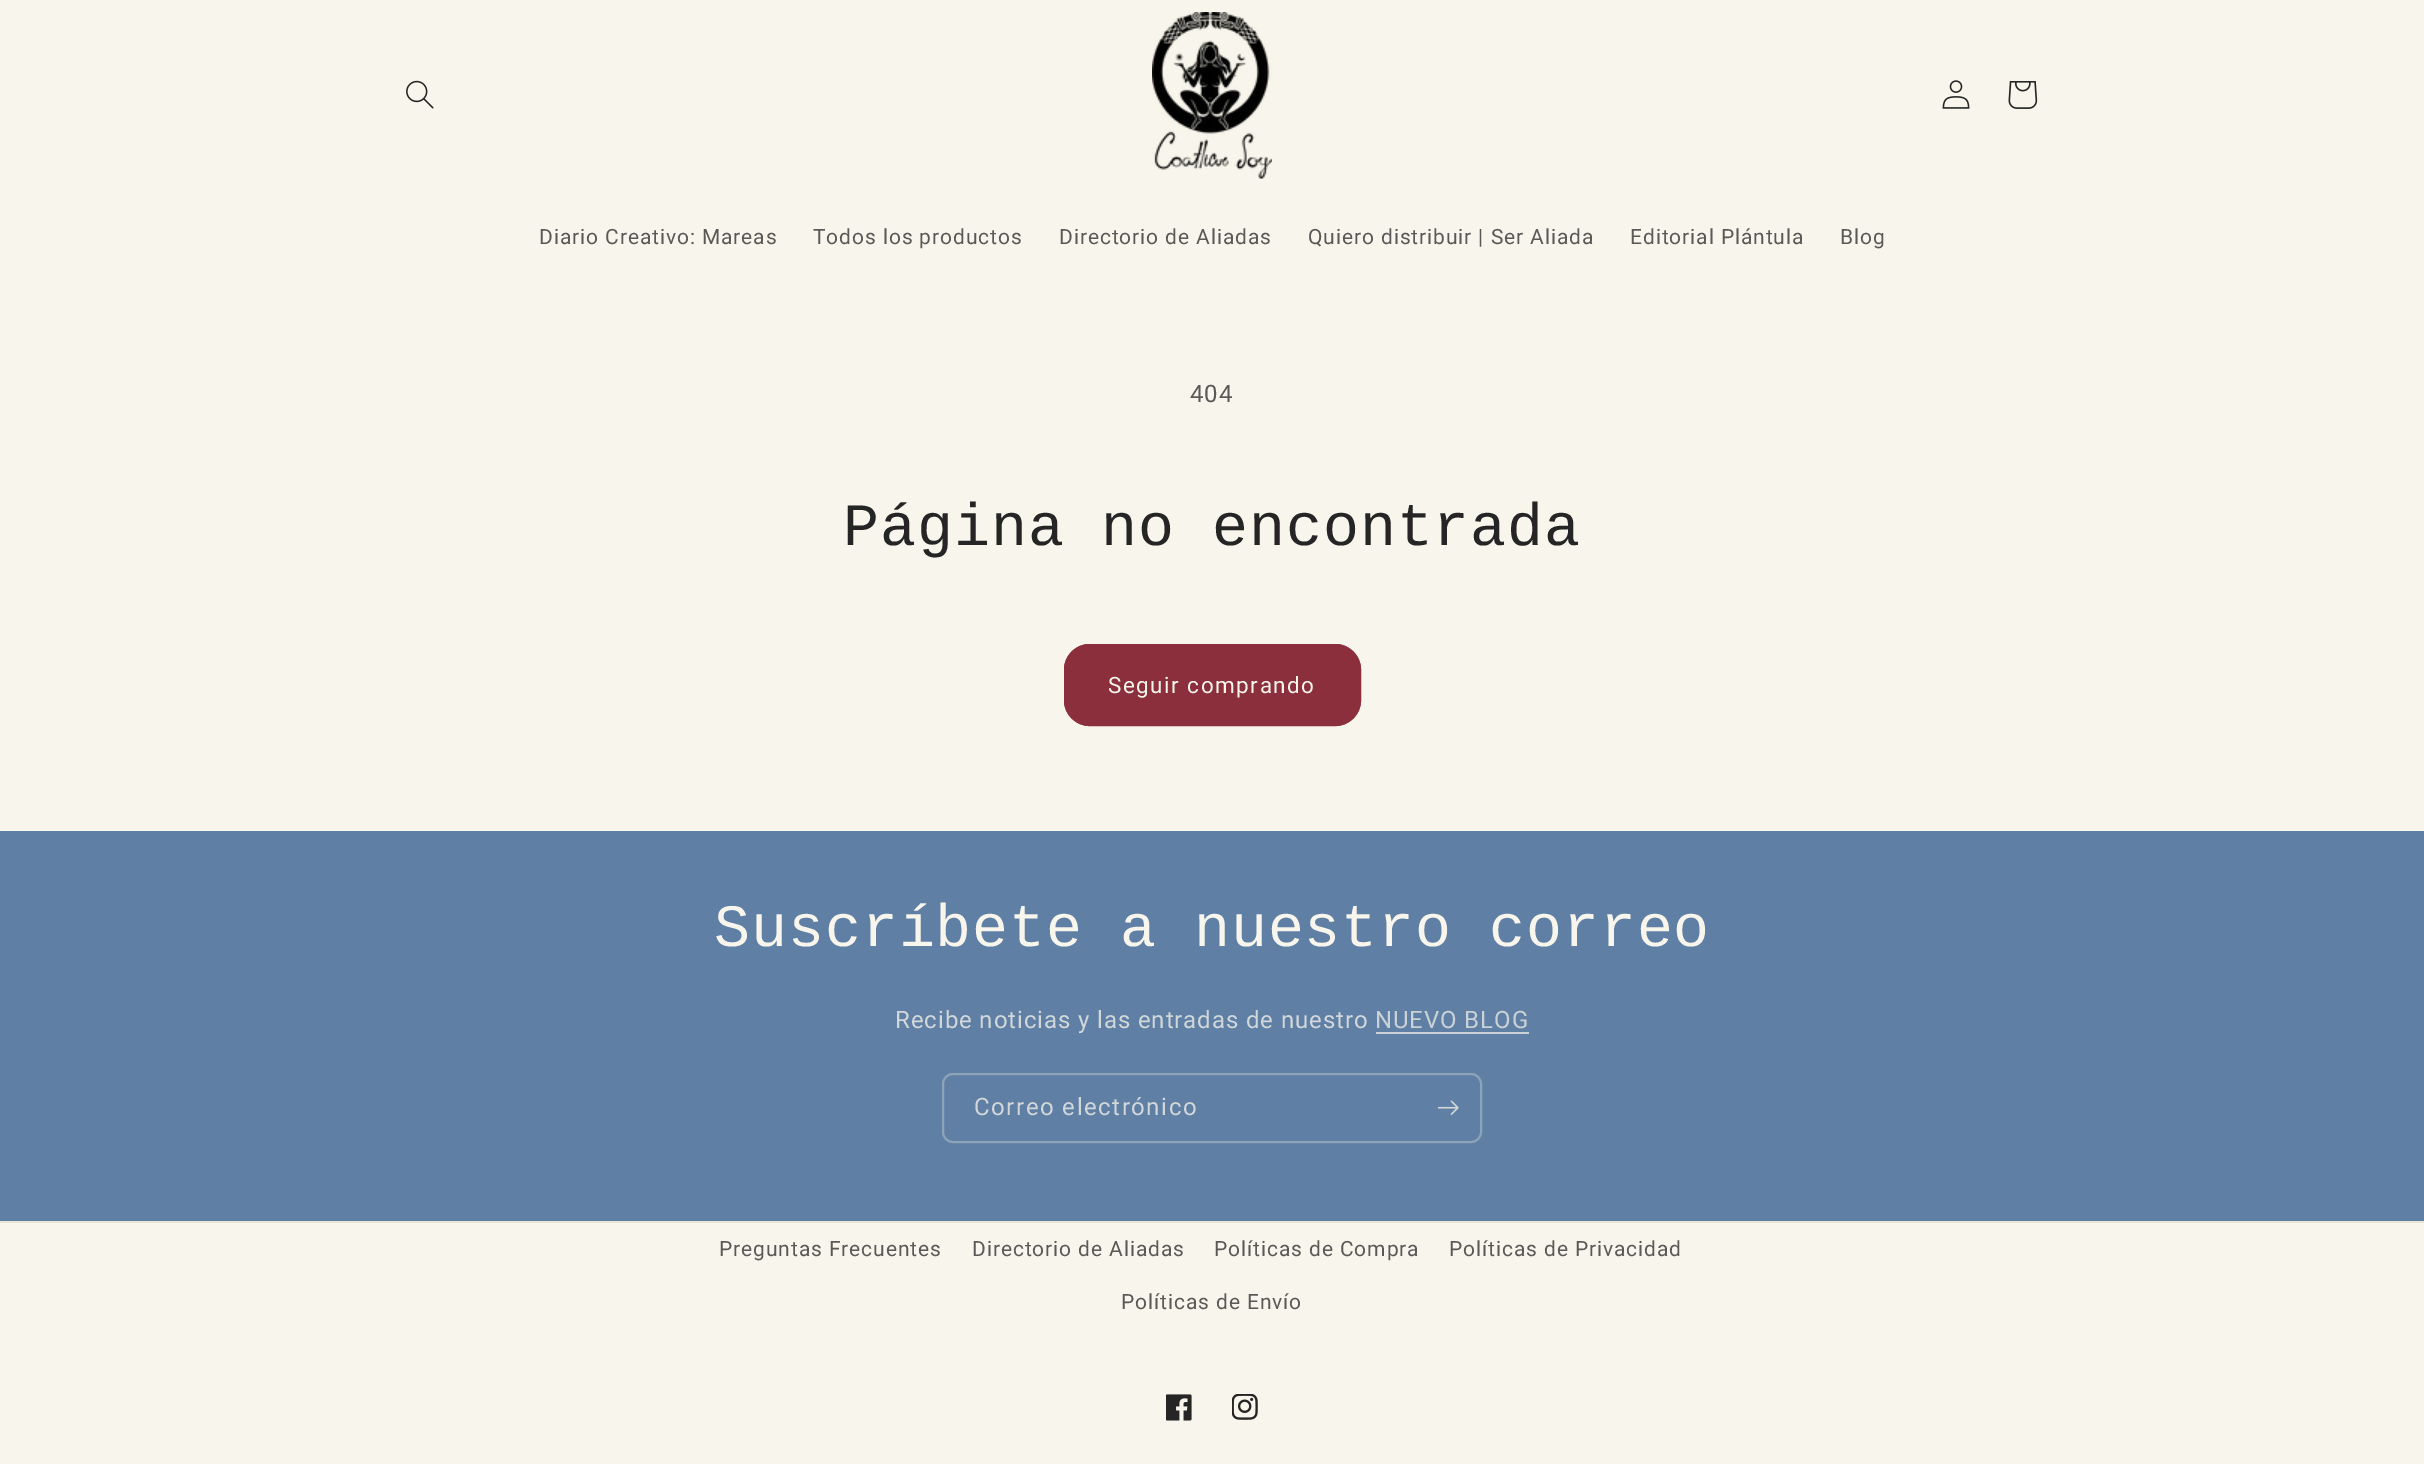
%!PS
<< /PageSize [2424 1464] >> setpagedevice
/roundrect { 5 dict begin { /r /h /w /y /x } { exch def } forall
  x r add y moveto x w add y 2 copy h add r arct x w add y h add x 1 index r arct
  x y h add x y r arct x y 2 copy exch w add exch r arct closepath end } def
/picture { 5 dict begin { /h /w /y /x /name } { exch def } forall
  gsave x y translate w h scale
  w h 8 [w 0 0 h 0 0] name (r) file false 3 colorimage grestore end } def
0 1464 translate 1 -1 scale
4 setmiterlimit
0.973 0.965 0.925 setrgbcolor
0 0 2424 1464 rectfill
(img1.rgb) 406 80 28 29 picture
(img2.rgb) 1152 12 120 167 picture
(img3.rgb) 1942 80 28 29 picture
(img4.rgb) 2008 81 30 28 picture
/Roboto-Regular [21 0 0 -21 0 0] selectfont
0.353 0.349 0.341 setrgbcolor
539 244 moveto 0.9 0 (Diario Creativo: Mareas) ashow
813 244 moveto 0.9 0 (Todos los productos) ashow
1059 244 moveto 0.9 0 (Directorio de Aliadas) ashow
1308 244 moveto 0.9 0 (Quiero distribuir | Ser Aliada) ashow
1630 244 moveto 0.9 0 (Editorial Plántula) ashow
1840 244 moveto 0.9 0 (Blog) ashow
/Roboto-Regular [24 0 0 -24 0 0] selectfont
1190 402 moveto 0.9 0 (404) ashow
/LiberationMono-Regular [60 0 0 -60 0 0] selectfont
0.145 setgray
843 545 moveto 0.9 0 (Página no encontrada) ashow
0.545 0.184 0.235 setrgbcolor
1064 644 297 82 26 roundrect fill
8 setlinewidth
1068 648 289 74 22 roundrect stroke
/Roboto-Regular [22.5 0 0 -22.5 0 0] selectfont
0.973 0.965 0.925 setrgbcolor
1108 693 moveto 1.5 0 (Seguir comprando) ashow
0.373 0.498 0.647 setrgbcolor
0 831 2424 390 rectfill
/LiberationMono-Regular [60 0 0 -60 0 0] selectfont
0.973 0.965 0.925 setrgbcolor
714 946 moveto 0.9 0 (Suscríbete a nuestro correo) ashow
/Roboto-Regular [24 0 0 -24 0 0] selectfont
0.824 0.847 0.855 setrgbcolor
895 1028 moveto 0.9 0 (Recibe noticias y las entradas de nuestro) ashow
0.792 0.824 0.843 setrgbcolor
1375 1028 moveto 0.9 0 (NUEVO BLOG) ashow
1376 1032 153 2 rectfill
0.553 0.639 0.729 setrgbcolor
2 setlinewidth
943 1074 538 68 10 roundrect stroke
0.824 0.847 0.855 setrgbcolor
974 1115 moveto 1.5 0 (Correo electrónico) ashow
(img5.rgb) 1437 1100 22 15 picture
0.906 0.898 0.863 setrgbcolor
0 1221 2424 2 rectfill
/Roboto-Regular [21 0 0 -21 0 0] selectfont
0.353 0.349 0.341 setrgbcolor
719 1256 moveto 0.9 0 (Preguntas Frecuentes) ashow
972 1256 moveto 0.9 0 (Directorio de Aliadas) ashow
1214 1256 moveto 0.9 0 (Políticas de Compra) ashow
1449 1256 moveto 0.9 0 (Políticas de Privacidad) ashow
1121 1309 moveto 0.9 0 (Políticas de Envío) ashow
(img6.rgb) 1166 1394 26 27 picture
(img7.rgb) 1232 1394 26 26 picture
showpage
